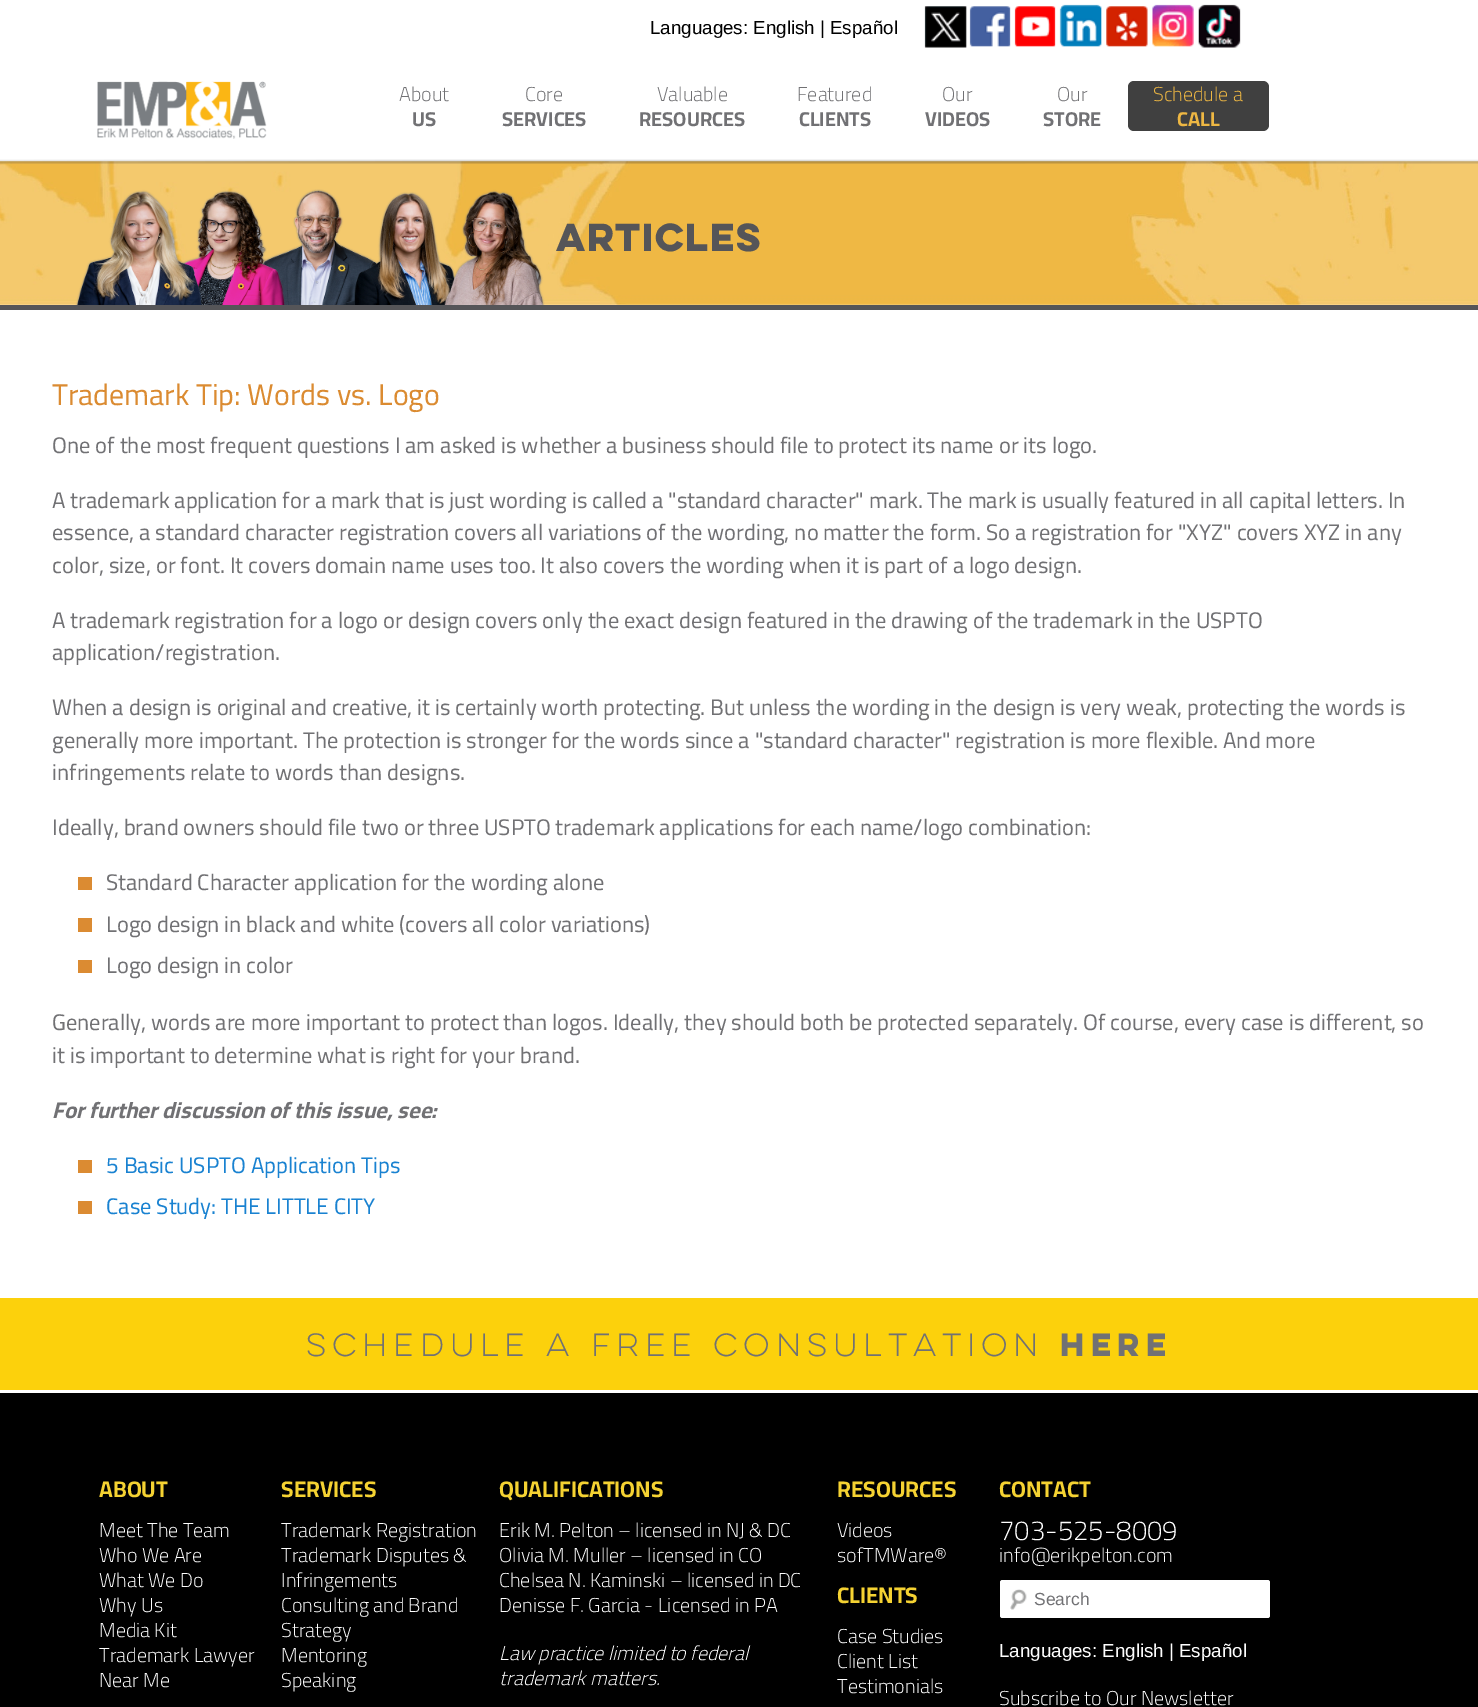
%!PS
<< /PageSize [1478 1707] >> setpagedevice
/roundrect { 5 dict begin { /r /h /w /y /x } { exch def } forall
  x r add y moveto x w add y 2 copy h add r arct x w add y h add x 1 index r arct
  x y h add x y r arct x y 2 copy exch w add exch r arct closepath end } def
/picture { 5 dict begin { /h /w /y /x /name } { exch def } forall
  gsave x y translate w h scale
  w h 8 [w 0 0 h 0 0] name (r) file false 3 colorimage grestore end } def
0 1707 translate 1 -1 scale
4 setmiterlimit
1 setgray
0 0 1478 1707 rectfill
/LiberationSans-Regular [18.75 0 0 -18.75 0 0] selectfont
0 setgray
650 34 moveto (Languages: English | Español) show
(img1.rgb) 924 4 317 44 picture
(img2.rgb) 97 81 170 58 picture
/Cairo-Light [20 0 0 -20 0 0] selectfont
0.443 0.443 0.455 setrgbcolor
399 101 moveto (About) show
/Cairo-Bold [20 0 0 -20 0 0] selectfont
412 126 moveto (US) show
/Cairo-Light [20 0 0 -20 0 0] selectfont
525 101 moveto (Core) show
/Cairo-Bold [20 0 0 -20 0 0] selectfont
502 126 moveto (SERVICES) show
/Cairo-Light [20 0 0 -20 0 0] selectfont
657 101 moveto (Valuable) show
/Cairo-Bold [20 0 0 -20 0 0] selectfont
639 126 moveto (RESOURCES) show
/Cairo-Light [20 0 0 -20 0 0] selectfont
797 101 moveto (Featured) show
/Cairo-Bold [20 0 0 -20 0 0] selectfont
799 126 moveto (CLIENTS) show
/Cairo-Light [20 0 0 -20 0 0] selectfont
942 101 moveto (Our) show
/Cairo-Bold [20 0 0 -20 0 0] selectfont
925 126 moveto (VIDEOS) show
/Cairo-Light [20 0 0 -20 0 0] selectfont
1057 101 moveto (Our) show
/Cairo-Bold [20 0 0 -20 0 0] selectfont
1043 126 moveto (STORE) show
0.251 setgray
1128 81 141 50 6 roundrect fill
/Cairo-Light [20 0 0 -20 0 0] selectfont
0.933 0.718 0.263 setrgbcolor
1153 101 moveto (Schedule a) show
/Cairo-Bold [20 0 0 -20 0 0] selectfont
1177 126 moveto (CALL) show
(img4.rgb) 0 161 1478 144 picture
(img3.rgb) 0 159 1478 5 picture
0.333 0.333 0.345 setrgbcolor
0 305 1478 5 rectfill
(img5.rgb) 75 189 470 116 picture
/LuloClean-Bold [35 0 0 -35 0 0] selectfont
556 251 moveto -6.25 0 (Articles) ashow
/Cairo-Regular [30 0 0 -30 0 0] selectfont
0.859 0.545 0.192 setrgbcolor
52 405 moveto (Trademark Tip: Words vs. Logo) show
/Cairo-Regular [22.5 0 0 -22.5 0 0] selectfont
0.443 0.443 0.455 setrgbcolor
52 453 moveto (One of the most frequent questions I am asked is whether a business should file to protect its name or its logo.) show
52 508 moveto (A trademark application for a mark that is just wording is called a "standard character" mark. The mark is usually featured in all capital letters. In) show
52 540 moveto (essence, a standard character registration covers all variations of the wording, no matter the form. So a registration for "XYZ" covers XYZ in any) show
52 573 moveto (color, size, or font. It covers domain name uses too. It also covers the wording when it is part of a logo design.) show
52 628 moveto (A trademark registration for a logo or design covers only the exact design featured in the drawing of the trademark in the USPTO) show
52 660 moveto (application/registration.) show
52 715 moveto (When a design is original and creative, it is certainly worth protecting. But unless the wording in the design is very weak, protecting the words is) show
52 748 moveto (generally more important. The protection is stronger for the words since a "standard character" registration is more flexible. And more) show
52 780 moveto (infringements relate to words than designs.) show
52 835 moveto (Ideally, brand owners should file two or three USPTO trademark applications for each name/logo combination:) show
0.859 0.545 0.196 setrgbcolor
78 877 14 13 rectfill
0.443 0.443 0.455 setrgbcolor
106 890 moveto (Standard Character application for the wording alone) show
0.859 0.545 0.196 setrgbcolor
78 918 14 14 rectfill
0.443 0.443 0.455 setrgbcolor
106 932 moveto (Logo design in black and white \(covers all color variations\)) show
0.859 0.545 0.196 setrgbcolor
78 960 14 13 rectfill
0.443 0.443 0.455 setrgbcolor
106 973 moveto (Logo design in color) show
52 1030 moveto (Generally, words are more important to protect than logos. Ideally, they should both be protected separately. Of course, every case is different, so) show
52 1063 moveto (it is important to determine what is right for your brand.) show
/Cairo-BoldItalic [22.5 0 0 -22.5 0 0] selectfont
52 1118 moveto (For further discussion of this issue, see:) show
0.859 0.545 0.196 setrgbcolor
78 1160 14 13 rectfill
/Cairo-Regular [22.5 0 0 -22.5 0 0] selectfont
0.098 0.51 0.82 setrgbcolor
106 1173 moveto (5 Basic USPTO Application Tips) show
0.859 0.545 0.196 setrgbcolor
78 1201 14 13 rectfill
0.098 0.51 0.82 setrgbcolor
106 1214 moveto (Case Study: THE LITTLE CITY) show
0.988 0.82 0.047 setrgbcolor
0 1298 1478 92 rectfill
/LuloClean-Regular [28.75 0 0 -28.75 0 0] selectfont
0.443 0.443 0.455 setrgbcolor
306 1356 moveto (SCHEDULE A FREE CONSULTATION) show
/LuloClean-Bold [28.75 0 0 -28.75 0 0] selectfont
1060 1356 moveto (HERE) show
0 setgray
0 1393 1478 314 rectfill
/Cairo-Bold [22.5 0 0 -22.5 0 0] selectfont
0.961 0.824 0.196 setrgbcolor
99 1497 moveto (ABOUT) show
/Cairo-Light [20 0 0 -20 0 0] selectfont
0.996 setgray
99 1537 moveto (Meet The Team) show
99 1562 moveto (Who We Are) show
99 1587 moveto (What We Do) show
99 1612 moveto (Why Us) show
99 1637 moveto (Media Kit) show
99 1662 moveto (Trademark Lawyer) show
99 1687 moveto (Near Me) show
/Cairo-Bold [22.5 0 0 -22.5 0 0] selectfont
0.961 0.824 0.196 setrgbcolor
281 1497 moveto (SERVICES) show
/Cairo-Light [20 0 0 -20 0 0] selectfont
0.996 setgray
281 1537 moveto (Trademark Registration) show
281 1562 moveto (Trademark Disputes &) show
281 1587 moveto (Infringements) show
281 1612 moveto (Consulting and Brand) show
281 1637 moveto (Strategy) show
281 1662 moveto (Mentoring) show
281 1687 moveto (Speaking) show
/Cairo-Bold [22.5 0 0 -22.5 0 0] selectfont
0.961 0.824 0.196 setrgbcolor
499 1497 moveto (QUALIFICATIONS) show
/Cairo-Light [20 0 0 -20 0 0] selectfont
0.996 setgray
499 1537 moveto (Erik M. Pelton – licensed in NJ & DC) show
499 1562 moveto (Olivia M. Muller – licensed in CO) show
499 1587 moveto (Chelsea N. Kaminski – licensed in DC) show
499 1612 moveto (Denisse F. Garcia - Licensed in PA) show
/Cairo-LightItalic [20 0 0 -20 0 0] selectfont
499 1660 moveto (Law practice limited to federal) show
499 1685 moveto (trademark matters.) show
/Cairo-Bold [22.5 0 0 -22.5 0 0] selectfont
0.961 0.824 0.196 setrgbcolor
837 1497 moveto (RESOURCES) show
/Cairo-Light [20 0 0 -20 0 0] selectfont
0.996 setgray
837 1537 moveto (Videos) show
837 1562 moveto (sofTMWare®) show
/Cairo-Bold [22.5 0 0 -22.5 0 0] selectfont
0.961 0.824 0.196 setrgbcolor
837 1603 moveto (CLIENTS) show
/Cairo-Light [20 0 0 -20 0 0] selectfont
0.996 setgray
837 1643 moveto (Case Studies) show
837 1668 moveto (Client List) show
837 1693 moveto (Testimonials) show
/Cairo-Bold [22.5 0 0 -22.5 0 0] selectfont
0.961 0.824 0.196 setrgbcolor
999 1497 moveto (CONTACT) show
/Cairo-Light [27.5 0 0 -27.5 0 0] selectfont
0.996 setgray
999 1540 moveto (703-525-8009) show
/Cairo-Light [20 0 0 -20 0 0] selectfont
999 1562 moveto (info@erikpelton.com) show
1 setgray
1000 1580 270 38 2.5 roundrect fill
(img6.rgb) 1010 1589 17 21 picture
/LiberationSans-Regular [17.5 0 0 -17.5 0 0] selectfont
0.443 0.443 0.455 setrgbcolor
1034 1605 moveto (Search) show
/LiberationSans-Regular [18.75 0 0 -18.75 0 0] selectfont
0.996 setgray
999 1657 moveto (Languages: English | Español) show
/Cairo-Light [20 0 0 -20 0 0] selectfont
999 1705 moveto (Subscribe to Our Newsletter) show
showpage
